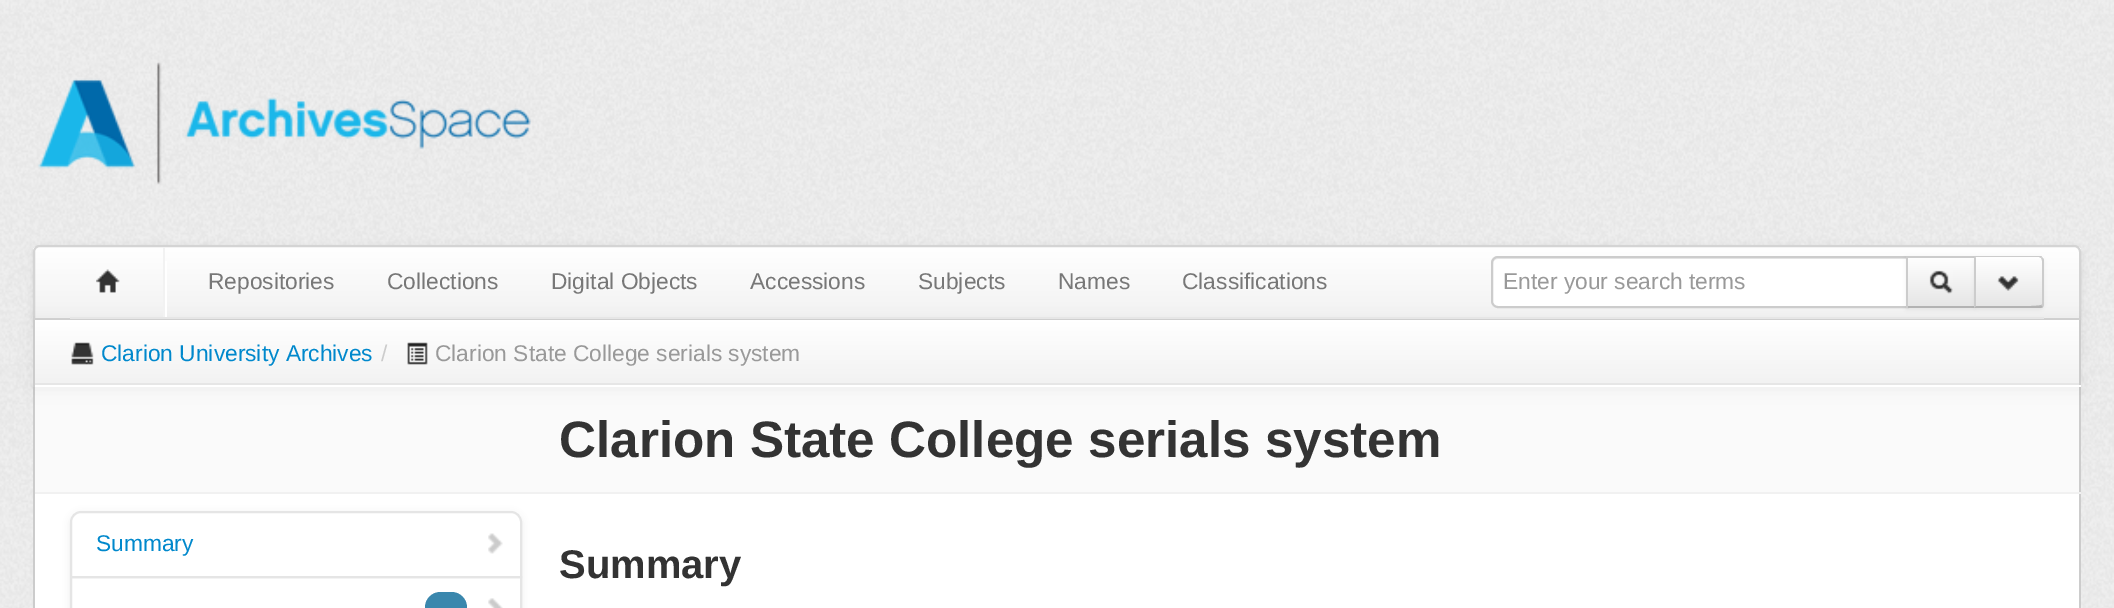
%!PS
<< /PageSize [2114 608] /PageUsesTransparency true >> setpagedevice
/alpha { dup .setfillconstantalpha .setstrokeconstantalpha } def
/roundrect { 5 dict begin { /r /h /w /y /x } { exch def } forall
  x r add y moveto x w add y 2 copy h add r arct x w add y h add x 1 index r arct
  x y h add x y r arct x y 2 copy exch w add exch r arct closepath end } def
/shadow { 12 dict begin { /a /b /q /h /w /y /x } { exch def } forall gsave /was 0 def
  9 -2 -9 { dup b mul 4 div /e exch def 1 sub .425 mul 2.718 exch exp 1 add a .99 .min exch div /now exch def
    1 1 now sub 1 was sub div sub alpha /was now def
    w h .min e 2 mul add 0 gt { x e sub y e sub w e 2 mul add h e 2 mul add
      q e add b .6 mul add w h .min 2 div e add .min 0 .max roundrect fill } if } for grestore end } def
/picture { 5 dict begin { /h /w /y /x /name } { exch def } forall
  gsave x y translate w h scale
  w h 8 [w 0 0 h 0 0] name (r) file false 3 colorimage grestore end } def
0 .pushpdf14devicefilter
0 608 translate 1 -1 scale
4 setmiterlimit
1 setgray
0 0 2114 608 rectfill
(img1.rgb) 0 0 2114 608 picture
(img2.rgb) 38 62 493 123 picture
0 setgray
33 247 2048 75 7 3.5 0.07 shadow
gsave
newpath 40 245 moveto 2074 245 lineto 2078 245 2081 248 2081 252 curveto 2081 320 lineto 33 320 lineto 33 252 lineto 33 248 36 245 40 245 curveto closepath clip newpath
gsave newpath 33 247 moveto 2081 247 lineto 2081 318 lineto 33 318 lineto closepath clip newpath
<< /ShadingType 2 /ColorSpace /DeviceRGB /Coords [1057 247 1057 319] /Extend [true true] /Function << /FunctionType 2 /Domain [0 1] /C0 [1 1 1] /C1 [0.949 0.949 0.949] /N 1 >> >> shfill grestore
grestore
0.831 setgray
2 setlinewidth
newpath 40 246 moveto 2074 246 lineto 2077.5 246 2080 248.5 2080 252 curveto 2080 319 lineto 34 319 lineto 34 252 lineto 34 248.5 36.5 246 40 246 curveto closepath stroke
0.98 setgray
35 387 2044 105 rectfill
0.8 setgray
2079 387 2 107 rectfill
0.945 setgray
33 492 2048 2 rectfill
0.8 setgray
33 387 2 107 rectfill
0 setgray
33 322 2048 67 0 9 0.05 shadow
0.902 setgray
70 317 1974 2 rectfill
(img3.rgb) 96 269 24 24 picture
1 setgray
165 261 2 56 rectfill
0.949 setgray
163 247 2 70 rectfill
/LiberationSans-Regular [22.75 0 0 -22.75 0 0] selectfont
0.467 setgray
208 289 moveto (Repositories) show
387 289 moveto (Collections) show
551 289 moveto (Digital Objects) show
750 289 moveto (Accessions) show
918 289 moveto (Subjects) show
1058 289 moveto (Names) show
1182 289 moveto (Classifications) show
1 setgray
newpath 1498 256 moveto 1909 256 lineto 1909 308 lineto 1498 308 lineto 1494 308 1491 305 1491 301 curveto 1491 263 lineto 1491 259 1494 256 1498 256 curveto closepath fill
0.925 setgray
newpath 1498 259 moveto 1908 259 lineto 1908 257 lineto 1498 257 lineto 1494 257 1493 261 1493 264 curveto 1493 261 1495 259 1498 259 curveto closepath fill
0.8 setgray
newpath 1498 257 moveto 1908 257 lineto 1908 307 lineto 1498 307 lineto 1494.5 307 1492 304.5 1492 301 curveto 1492 263 lineto 1492 259.5 1494.5 257 1498 257 curveto closepath stroke
0.6 setgray
1503 289 moveto (Enter your search terms) show
0 setgray
1906 257 70 53 0 2 0.05 shadow
gsave newpath 1908 258 moveto 1974 258 lineto 1974 306 lineto 1908 306 lineto closepath clip newpath
<< /ShadingType 2 /ColorSpace /DeviceRGB /Coords [1941 257 1941 306] /Extend [true true] /Function << /FunctionType 2 /Domain [0 1] /C0 [1 1 1] /C1 [0.902 0.902 0.902] /N 1 >> >> shfill grestore
0.8 setgray
1906 256 70 2 rectfill
0.702 setgray
1906 306 70 2 rectfill
0.8 setgray
1906 256 2 52 rectfill
(img4.rgb) 1929 270 24 24 picture
0 setgray
1974 257 70 53 5 2 0.05 shadow
gsave
newpath 1974 256 moveto 2039 256 lineto 2042 256 2044 258 2044 261 curveto 2044 303 lineto 2044 306 2042 308 2039 308 curveto 1974 308 lineto closepath clip newpath
gsave newpath 1975 257 moveto 2044 257 lineto 2044 306 lineto 1975 306 lineto closepath clip newpath
<< /ShadingType 2 /ColorSpace /DeviceRGB /Coords [2009 257 2009 306] /Extend [true true] /Function << /FunctionType 2 /Domain [0 1] /C0 [1 1 1] /C1 [0.902 0.902 0.902] /N 1 >> >> shfill grestore
grestore
0.8 setgray
newpath 1976 257 moveto 2039 257 lineto 2041 258 lineto 2042 257 lineto 2042 256 2040 256 2039 256 curveto 1974 256 lineto 1976 258 lineto closepath fill
newpath 2044 303 moveto 2044 261 lineto 2044 259 2043 258 2042 257 curveto 2041 258 lineto 2043 261 2042 267 2042 268 curveto 2042 304 lineto 2041 305 lineto 2043 307 lineto 2044 306 2044 304 2044 303 curveto closepath fill
0.702 setgray
newpath 2039 308 moveto 2040 308 2042 308 2043 307 curveto 2041 305 lineto 2040 307 1983 306 1976 306 curveto 1974 308 lineto closepath fill
0.8 setgray
newpath 1974 308 moveto 1976 306 lineto 1976 258 lineto 1974 256 lineto closepath fill
(img5.rgb) 1997 276 22 15 picture
gsave newpath 35 322 moveto 2079 322 lineto 2079 383 lineto 35 383 lineto closepath clip newpath
<< /ShadingType 2 /ColorSpace /DeviceRGB /Coords [1057 322 1057 385] /Extend [true true] /Function << /FunctionType 2 /Domain [0 1] /C0 [1 1 1] /C1 [0.949 0.949 0.949] /N 1 >> >> shfill grestore
0.902 setgray
35 383 2044 2 rectfill
1 setgray
33 320 2048 2 rectfill
0.8 setgray
2079 320 2 67 rectfill
1 setgray
33 385 2048 2 rectfill
0.8 setgray
33 320 2 67 rectfill
(img6.rgb) 71 342 23 23 picture
0 0.533 0.8 setrgbcolor
101 361 moveto (Clarion University Archives) show
0.8 setgray
381 361 moveto (/) show
(img7.rgb) 407 342 21 23 picture
0.6 setgray
435 361 moveto (Clarion State College serials system) show
/LiberationSans-Bold [51.2 0 0 -51.2 0 0] selectfont
0.2 setgray
559 457 moveto (Clarion State College serials system) show
1 setgray
35 494 2044 114 rectfill
0.8 setgray
newpath 33 494 moveto 2081 494 lineto 2081 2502 lineto 2081 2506 2078 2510 2074 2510 curveto 40 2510 lineto 36 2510 33 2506 33 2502 curveto closepath 35 494 moveto 2079 494 lineto 2079 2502 lineto 2079 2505 2077 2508 2074 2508 curveto 40 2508 lineto 37 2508 35 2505 35 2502 curveto closepath eofill
0 setgray
70 513 452 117 11 3.5 0.07 shadow
1 setgray
70 511 452 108 11 roundrect fill
0.898 setgray
newpath 81 512 moveto 511 512 lineto 516.5 512 521 516.5 521 522 curveto 521 577 lineto 71 577 lineto 71 522 lineto 71 516.5 75.5 512 81 512 curveto closepath stroke
/LiberationSans-Regular [22.75 0 0 -22.75 0 0] selectfont
0 0.533 0.8 setrgbcolor
96 551 moveto (Summary) show
(img8.rgb) 488 533 15 21 picture
0.898 setgray
71 577 450 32 rectstroke
0.227 0.529 0.678 setrgbcolor
425 592 42 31 15.5 roundrect fill
(img9.rgb) 488 598 15 10 picture
/LiberationSans-Bold [40 0 0 -40 0 0] selectfont
0.2 setgray
559 578 moveto (Summary) show
.poppdf14devicefilter showpage
